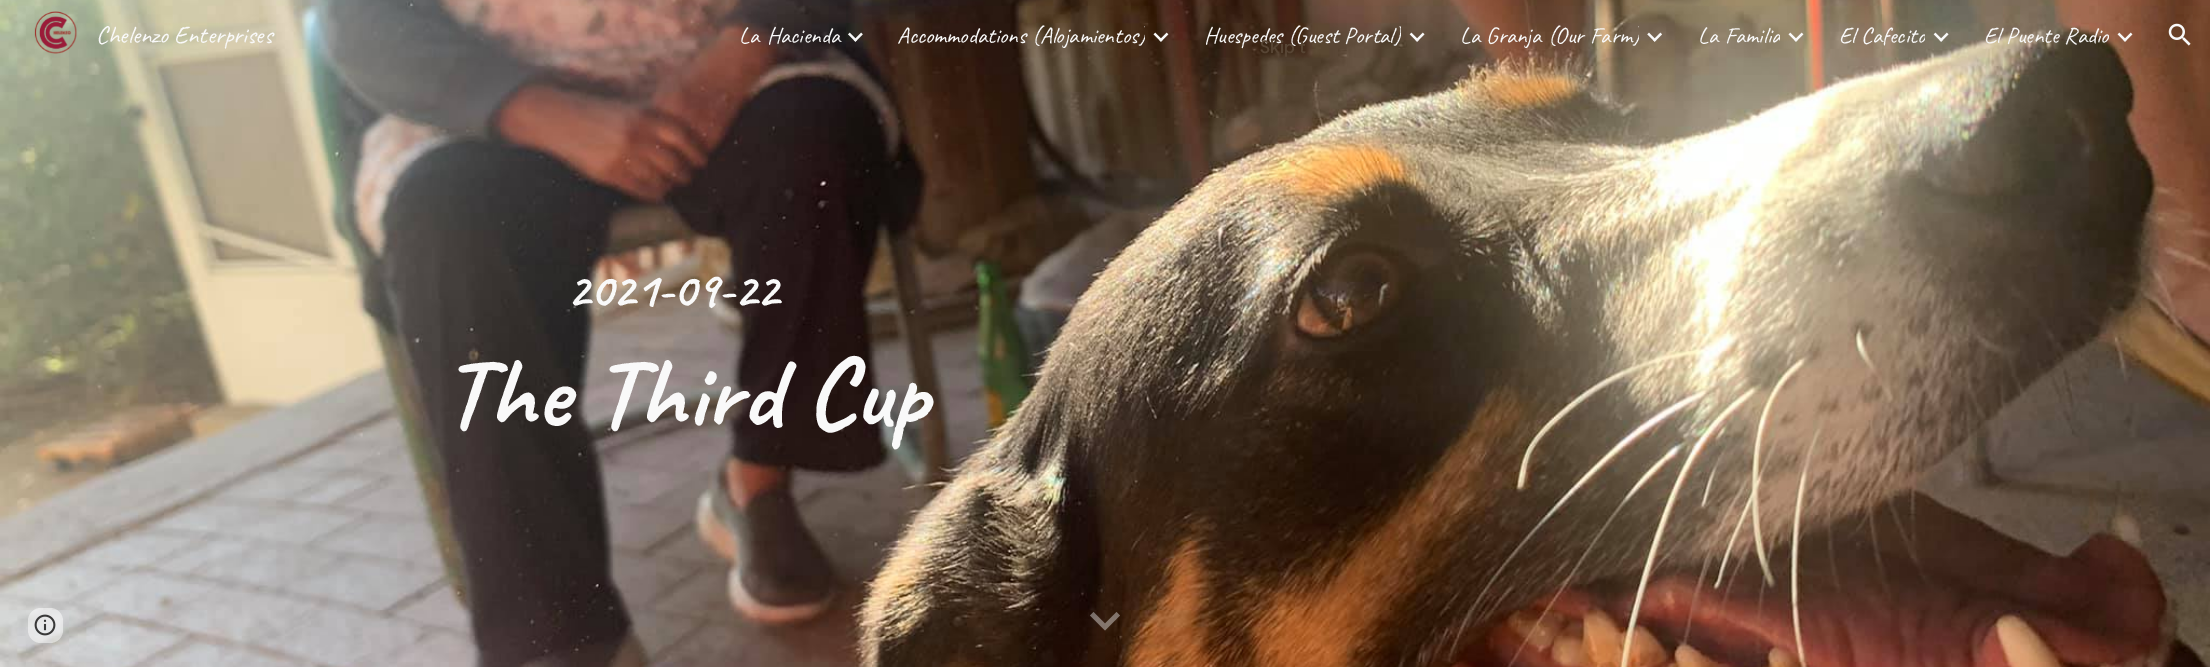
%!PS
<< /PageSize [2210 667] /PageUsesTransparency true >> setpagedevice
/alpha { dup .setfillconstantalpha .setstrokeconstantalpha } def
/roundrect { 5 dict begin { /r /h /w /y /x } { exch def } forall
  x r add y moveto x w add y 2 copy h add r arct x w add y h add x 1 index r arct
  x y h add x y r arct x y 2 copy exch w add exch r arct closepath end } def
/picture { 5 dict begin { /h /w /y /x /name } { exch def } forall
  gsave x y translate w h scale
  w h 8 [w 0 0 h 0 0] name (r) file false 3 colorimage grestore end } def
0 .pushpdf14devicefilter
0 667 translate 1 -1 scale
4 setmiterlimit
1 setgray
0 0 2210 667 rectfill
(img10.rgb) 0 0 2210 667 picture
(img1.rgb) 34 11 43 43 picture
/Caveat-Regular [25 0 0 -25 0 0] selectfont
0.976 setgray
96 43 moveto (Chelenzo Enterprises) show
/Caveat-Regular [23.25 0 0 -23.25 0 0] selectfont
739 43 moveto 2 0 32 (La Hacienda) widthshow
(img2.rgb) 848 32 15 10 picture
gsave
898 20 247 30 rectclip
897 43 moveto 1 0 32 (Accommodations \(Alojamientos\)) widthshow
grestore
(img3.rgb) 1153 32 16 10 picture
gsave
1204 20 197 30 rectclip
1204 43 moveto (Huespedes \(Guest Portal\)) show
grestore
(img4.rgb) 1409 32 16 10 picture
gsave
1460 20 179 30 rectclip
1460 43 moveto 0.5 0 32 (La Granja \(Our Farm\)) widthshow
grestore
(img5.rgb) 1647 32 15 10 picture
gsave
1698 20 82 30 rectclip
1698 43 moveto 1 0 32 (La Familia) widthshow
grestore
(img6.rgb) 1788 32 16 10 picture
gsave
1839 20 86 30 rectclip
1839 43 moveto (El Cafecito) show
grestore
(img7.rgb) 1933 32 16 10 picture
gsave
1984 20 125 30 rectclip
1984 43 moveto (El Puente Radio) show
grestore
(img8.rgb) 2117 32 16 10 picture
(img9.rgb) 2168 23 23 23 picture
/Caveat-Bold [50 0 0 -50 0 0] selectfont
567 306 moveto (2021-09-22) show
/Caveat-Bold [100 0 0 -100 0 0] selectfont
442 426 moveto (The Third Cup) show
0.4 alpha
1 setgray
newpath 1093.5 612 moveto 1105 623.5 lineto 1116.5 612 lineto 1120 615.5 lineto 1105 630.5 lineto 1090 615.5 lineto closepath fill
0.5 alpha
28 608 35 35 13 roundrect fill
1 alpha
(img11.rgb) 34 614 22 22 picture
/GoogleSans-Medium [17.5 0 0 -17.5 0 0] selectfont
0.341 0.271 0.204 setrgbcolor
1260 53 moveto 0.25 0 (Skip t) ashow
.poppdf14devicefilter showpage
